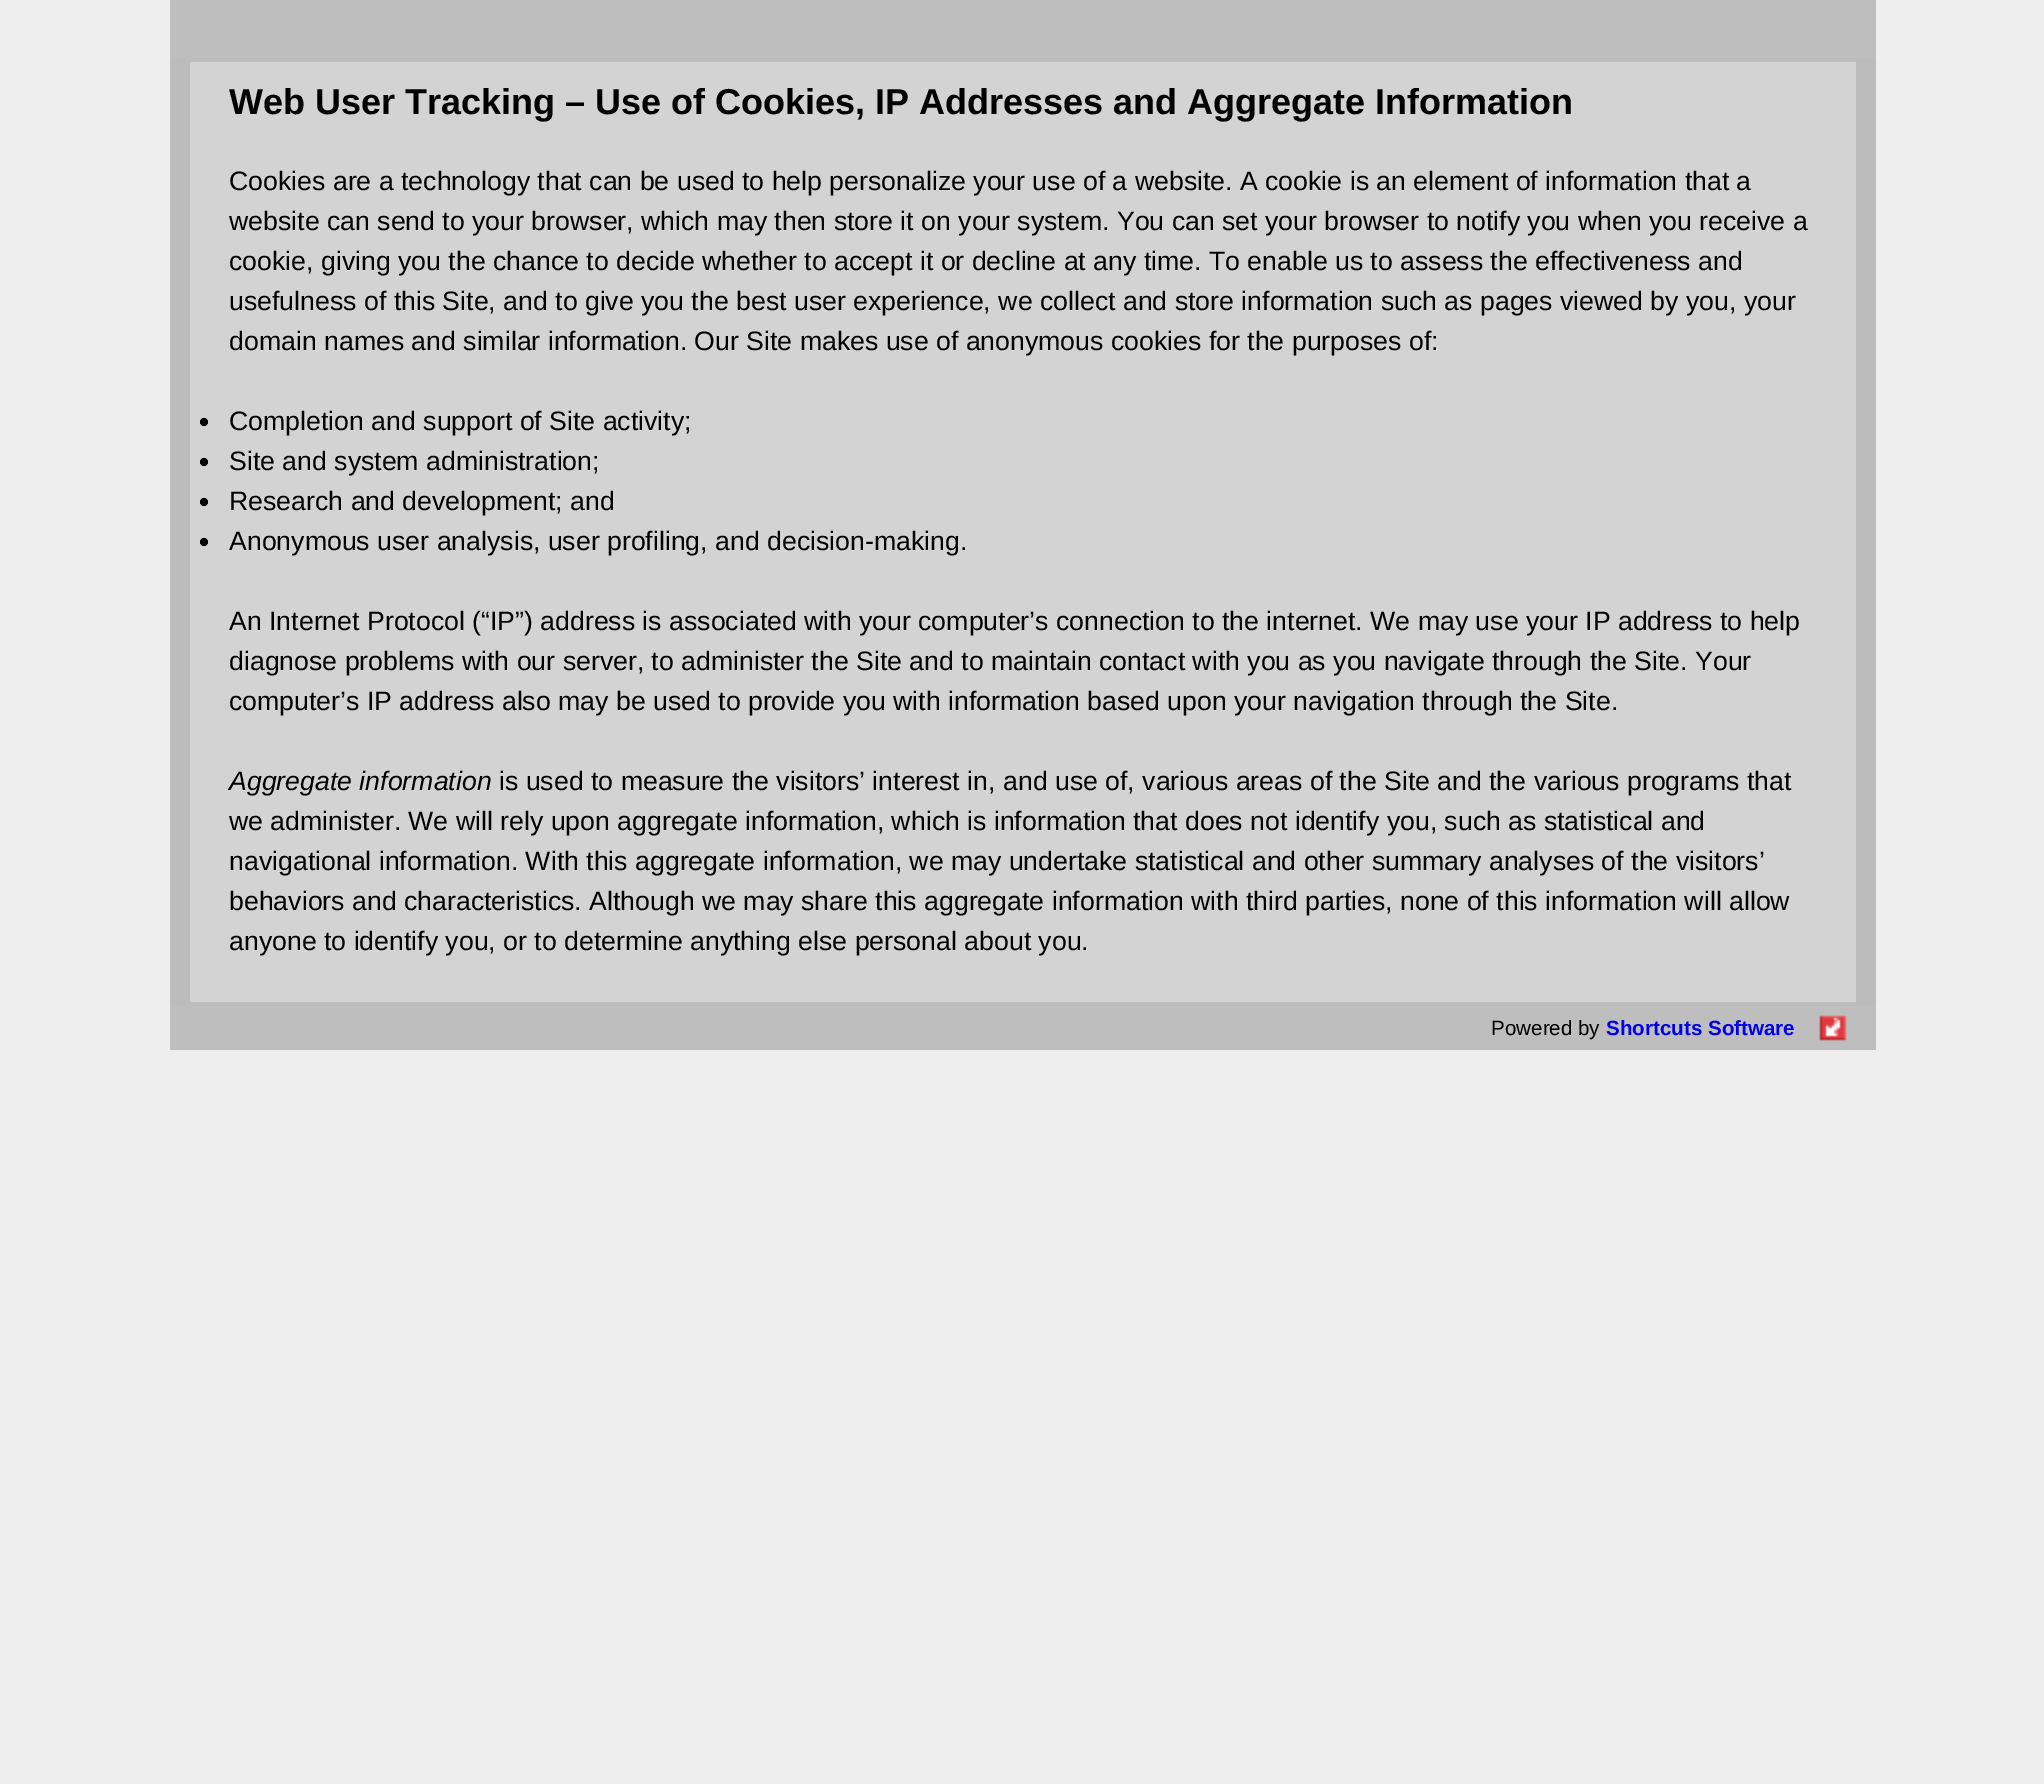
%!PS
<< /PageSize [2044 1784] >> setpagedevice
/picture { 5 dict begin { /h /w /y /x /name } { exch def } forall
  gsave x y translate w h scale
  w h 8 [w 0 0 h 0 0] name (r) file false 3 colorimage grestore end } def
0 1784 translate 1 -1 scale
4 setmiterlimit
0.933 setgray
0 0 2044 1784 rectfill
0.745 setgray
170 0 1706 58 rectfill
0.737 setgray
170 58 1706 948 rectfill
0.827 setgray
190 62 1666 940 rectfill
/LiberationSans-Bold [36 0 0 -36 0 0] selectfont
0 setgray
229 114 moveto (Web User Tracking – Use of Cookies, IP Addresses and Aggregate Information) show
/LiberationSans-Regular [26.67 0 0 -26.67 0 0] selectfont
229 190 moveto (Cookies are a technology that can be used to help personalize your use of a website. A cookie is an element of information that a) show
229 230 moveto (website can send to your browser, which may then store it on your system. You can set your browser to notify you when you receive a) show
229 270 moveto (cookie, giving you the chance to decide whether to accept it or decline at any time. To enable us to assess the effectiveness and) show
229 310 moveto (usefulness of this Site, and to give you the best user experience, we collect and store information such as pages viewed by you, your) show
229 350 moveto (domain names and similar information. Our Site makes use of anonymous cookies for the purposes of:) show
newpath 204 422 4 0 360 arc closepath fill
229 430 moveto (Completion and support of Site activity;) show
newpath 204 462 4 0 360 arc closepath fill
229 470 moveto (Site and system administration;) show
newpath 204 502 4 0 360 arc closepath fill
229 510 moveto (Research and development; and) show
newpath 204 542 4 0 360 arc closepath fill
229 550 moveto (Anonymous user analysis, user profiling, and decision-making.) show
229 630 moveto (An Internet Protocol \(“IP”\) address is associated with your computer’s connection to the internet. We may use your IP address to help) show
229 670 moveto (diagnose problems with our server, to administer the Site and to maintain contact with you as you navigate through the Site. Your) show
229 710 moveto (computer’s IP address also may be used to provide you with information based upon your navigation through the Site.) show
/LiberationSans-Italic [26.67 0 0 -26.67 0 0] selectfont
229 790 moveto (Aggregate information) show
/LiberationSans-Regular [26.67 0 0 -26.67 0 0] selectfont
499 790 moveto (is used to measure the visitors’ interest in, and use of, various areas of the Site and the various programs that) show
229 830 moveto (we administer. We will rely upon aggregate information, which is information that does not identify you, such as statistical and) show
229 870 moveto (navigational information. With this aggregate information, we may undertake statistical and other summary analyses of the visitors’) show
229 910 moveto (behaviors and characteristics. Although we may share this aggregate information with third parties, none of this information will allow) show
229 950 moveto (anyone to identify you, or to determine anything else personal about you.) show
0.745 setgray
170 1006 1706 44 rectfill
/LiberationSans-Regular [20.6 0 0 -20.6 0 0] selectfont
0 setgray
1491 1035 moveto (Powered by) show
/LiberationSans-Bold [20.6 0 0 -20.6 0 0] selectfont
0 0 0.933 setrgbcolor
1606 1035 moveto (Shortcuts Software) show
(img1.rgb) 1819 1015 28 26 picture
showpage
